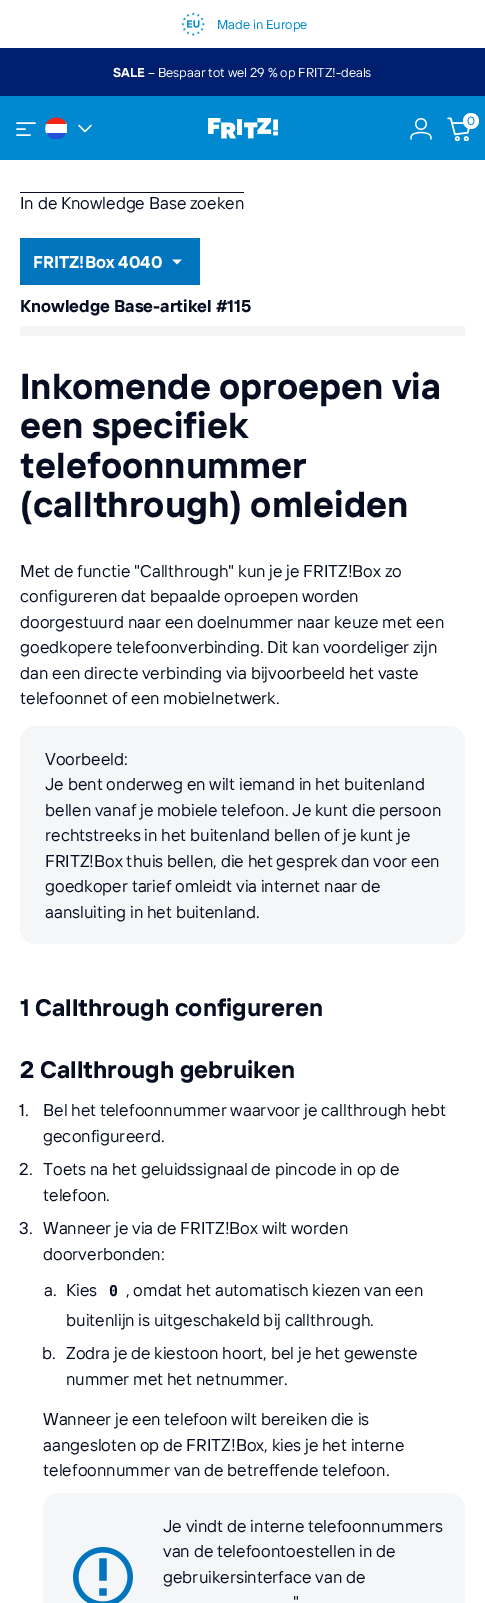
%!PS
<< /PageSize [485 1603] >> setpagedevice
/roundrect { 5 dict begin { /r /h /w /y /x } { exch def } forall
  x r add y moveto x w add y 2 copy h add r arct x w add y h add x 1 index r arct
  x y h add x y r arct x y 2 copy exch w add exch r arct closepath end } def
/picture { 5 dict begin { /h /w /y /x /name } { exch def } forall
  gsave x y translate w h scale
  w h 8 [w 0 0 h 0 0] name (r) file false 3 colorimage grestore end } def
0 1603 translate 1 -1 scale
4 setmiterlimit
1 setgray
0 0 485 1603 rectfill
(img1.rgb) 181 12 24 24 picture
/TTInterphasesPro-Regular [13 0 0 -13 0 0] selectfont
0 0.537 0.82 setrgbcolor
217 29 moveto (Made in Europe) show
0 0.118 0.431 setrgbcolor
0 48 485 48 rectfill
/TTInterphasesPro-Bold [13 0 0 -13 0 0] selectfont
1 setgray
113 77 moveto (SALE) show
/TTInterphasesPro-Regular [13 0 0 -13 0 0] selectfont
148 77 moveto (– Bespaar tot wel 29 % op FRITZ!-deals) show
0 0.537 0.82 setrgbcolor
0 96 485 64 rectfill
1 setgray
1.5 setlinewidth
1 setlinecap
newpath 17 123 moveto 35 123 lineto 17 129 moveto 25 129 lineto 17 135 moveto 30 135 lineto stroke
gsave
45 117 22 22 rectclip
newpath 67.5 128.5 moveto 67.5 131 66.5 133 65.5 135 curveto 47.5 135 lineto 44.5 131.5 44.5 126 47.5 122 curveto 65.5 122 lineto 67 124 67.5 126 67.5 128.5 curveto closepath fill
0.133 0.322 0.835 setrgbcolor
newpath 66.5 133 moveto 46.5 133 lineto 50 141.5 62.5 141.5 66.5 133 curveto closepath fill
grestore
0.953 0.149 0.078 setrgbcolor
newpath 66.5 124 moveto 46 124 lineto 50 115.5 63 115.5 66.5 124 curveto closepath fill
1 setgray
1.4 setlinewidth
1 setlinejoin
newpath 79 125.5 moveto 85 131.5 lineto 91 125.5 lineto stroke
(img2.rgb) 208 118 70 21 picture
(img3.rgb) 410 118 22 22 picture
(img4.rgb) 447 117 23 24 picture
newpath 471 121 8 0 360 arc closepath fill
/TTInterphasesPro-Regular [12 0 0 -12 0 0] selectfont
0 0.537 0.82 setrgbcolor
467 125 moveto (0) show
/TTInterphasesPro-Regular [17 0 0 -17 0 0] selectfont
0.027 0.055 0.129 setrgbcolor
20 209 moveto (In de Knowledge Base zoeken) show
20 192 224 1 rectfill
0.961 setgray
20 326 445 10 rectfill
0 0.455 0.741 setrgbcolor
20 238 180 47 rectfill
/TTInterphasesPro-Bold [17 0 0 -17 0 0] selectfont
1 setgray
33 268 moveto (FRITZ!Box 4040) show
(img5.rgb) 172 259 10 6 picture
0.027 0.055 0.129 setrgbcolor
20 312 moveto (Knowledge Base-artikel #115) show
/TTInterphasesPro-Bold [36 0 0 -36 0 0] selectfont
20 399 moveto (Inkomende oproepen via) show
20 438 moveto (een specifiek) show
20 478 moveto (telefoonnummer) show
20 517 moveto (\(callthrough\) omleiden) show
/TTInterphasesPro-Regular [17 0 0 -17 0 0] selectfont
20 577 moveto (Met de functie "Callthrough" kun je je FRITZ!Box zo) show
20 602 moveto (configureren dat bepaalde oproepen worden) show
20 628 moveto (doorgestuurd naar een doelnummer naar keuze met een) show
20 653 moveto (goedkopere telefoonverbinding. Dit kan voordeliger zijn) show
20 679 moveto (dan een directe verbinding via bijvoorbeeld het vaste) show
20 704 moveto (telefoonnet of een mobielnetwerk.) show
0.957 0.965 0.973 setrgbcolor
20 726 445 218 16 roundrect fill
0.027 0.055 0.129 setrgbcolor
45 765 moveto (Voorbeeld:) show
45 790 moveto (Je bent onderweg en wilt iemand in het buitenland) show
45 816 moveto (bellen vanaf je mobiele telefoon. Je kunt die persoon) show
45 841 moveto (rechtstreeks in het buitenland bellen of je kunt je) show
45 867 moveto (FRITZ!Box thuis bellen, die het gesprek dan voor een) show
45 892 moveto (goedkoper tarief omleidt via internet naar de) show
45 918 moveto (aansluiting in het buitenland.) show
/TTInterphasesPro-Bold [24 0 0 -24 0 0] selectfont
20 1016 moveto (1 Callthrough configureren) show
20 1078 moveto (2 Callthrough gebruiken) show
/TTInterphasesPro-Regular [17 0 0 -17 0 0] selectfont
19 1116 moveto (1.) show
43 1116 moveto (Bel het telefoonnummer waarvoor je callthrough hebt) show
43 1142 moveto (geconfigureerd.) show
19 1175 moveto (2.) show
43 1175 moveto (Toets na het geluidssignaal de pincode in op de) show
43 1201 moveto (telefoon.) show
19 1234 moveto (3.) show
43 1234 moveto (Wanneer je via de FRITZ!Box wilt worden) show
43 1260 moveto (doorverbonden:) show
44 1296 moveto (a.) show
66 1296 moveto (Kies) show
/DejaVuSansMono-Bold [15 0 0 -15 0 0] selectfont
109 1296 moveto (0) show
/TTInterphasesPro-Regular [17 0 0 -17 0 0] selectfont
126 1296 moveto (, omdat het automatisch kiezen van een) show
66 1326 moveto (buitenlijn is uitgeschakeld bij callthrough.) show
42 1359 moveto (b.) show
66 1359 moveto (Zodra je de kiestoon hoort, bel je het gewenste) show
66 1385 moveto (nummer met het netnummer.) show
43 1425 moveto (Wanneer je een telefoon wilt bereiken die is) show
43 1451 moveto (aangesloten op de FRITZ!Box, kies je het interne) show
43 1476 moveto (telefoonnummer van de betreffende telefoon.) show
0.957 0.965 0.973 setrgbcolor
43 1493 422 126 16 roundrect fill
0.027 0.055 0.129 setrgbcolor
163 1532 moveto (Je vindt de interne telefoonnummers) show
(img6.rgb) 73 1547 60 56 picture
163 1557 moveto (van de telefoontoestellen in de) show
163 1583 moveto (gebruikersinterface van de) show
293 1608 moveto (") show
showpage
